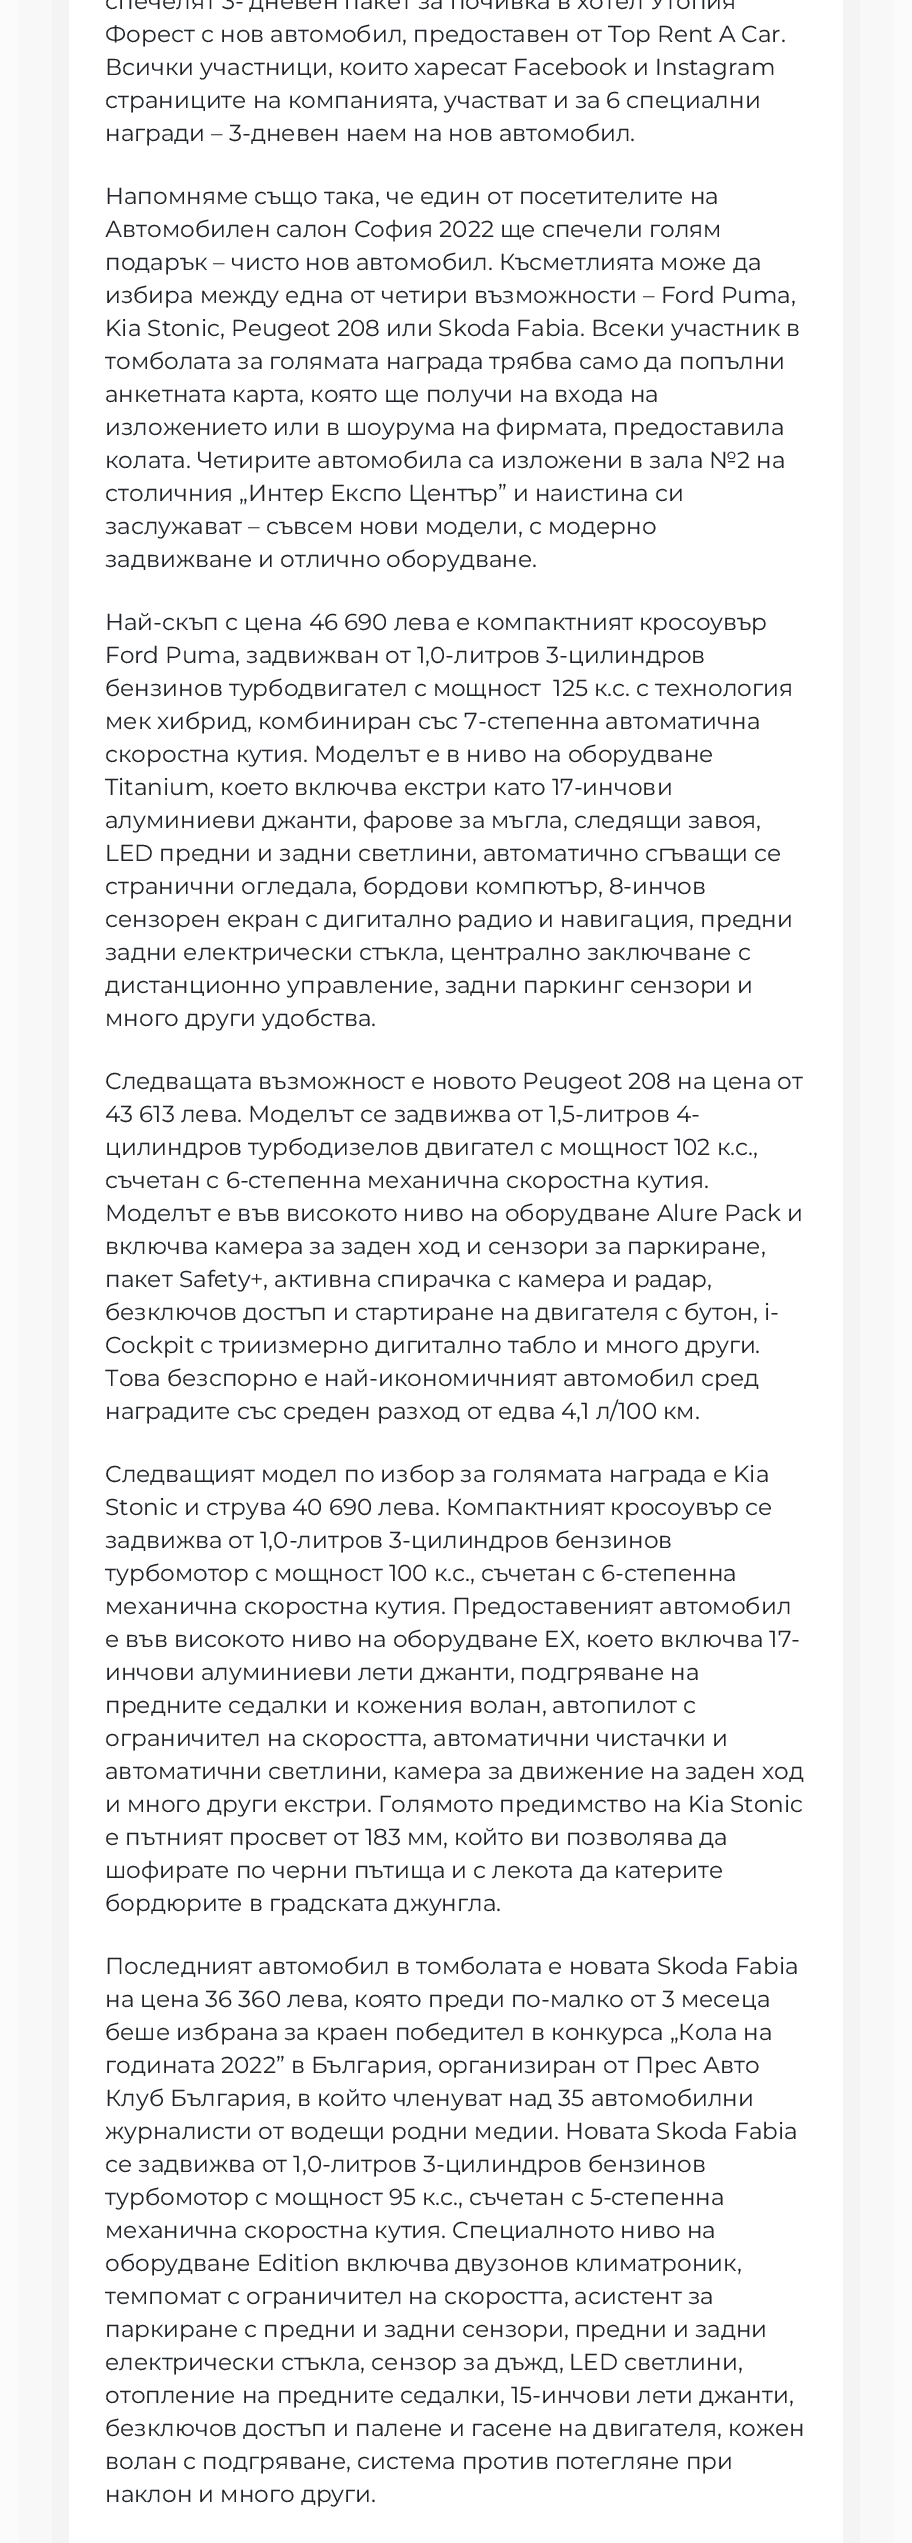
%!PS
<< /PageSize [912 2543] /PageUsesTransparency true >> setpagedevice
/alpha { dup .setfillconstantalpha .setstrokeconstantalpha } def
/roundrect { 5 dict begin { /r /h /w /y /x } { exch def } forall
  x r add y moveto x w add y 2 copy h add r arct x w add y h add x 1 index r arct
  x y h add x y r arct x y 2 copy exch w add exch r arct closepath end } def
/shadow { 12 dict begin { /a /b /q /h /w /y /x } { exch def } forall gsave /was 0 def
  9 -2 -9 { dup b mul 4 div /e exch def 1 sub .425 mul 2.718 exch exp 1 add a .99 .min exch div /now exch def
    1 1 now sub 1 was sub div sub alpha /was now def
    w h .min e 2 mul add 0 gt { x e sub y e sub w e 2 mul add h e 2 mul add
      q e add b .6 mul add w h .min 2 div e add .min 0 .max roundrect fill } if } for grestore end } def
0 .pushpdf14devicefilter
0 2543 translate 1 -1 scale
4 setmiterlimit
1 setgray
0 0 912 2543 rectfill
gsave
newpath 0 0 moveto 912 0 lineto 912 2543 lineto 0 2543 lineto closepath 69 -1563 moveto 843 -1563 lineto 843 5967 lineto 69 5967 lineto closepath eoclip newpath
0.914 setgray
69 -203 774 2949 0 67.5 1 shadow
grestore
/Montserrat-Regular [23.1 0 0 -23.1 0 0] selectfont
0.129 0.145 0.161 setrgbcolor
105 9 moveto (спечелят 3- дневен пакет за почивка в хотел Утопия) show
105 42 moveto (Форест с нов автомобил, предоставен от Top Rent A Car.) show
105 75 moveto (Всички участници, които харесат Facebook и Instagram) show
105 108 moveto (страниците на компанията, участват и за 6 специални) show
105 141 moveto (награди – 3-дневен наем на нов автомобил.) show
105 204 moveto (Напомняме също така, че един от посетителите на) show
105 237 moveto (Автомобилен салон София 2022 ще спечели голям) show
105 270 moveto (подарък – чисто нов автомобил. Късметлията може да) show
105 303 moveto (избира между една от четири възможности – Ford Puma,) show
105 336 moveto (Kia Stonic, Peugeot 208 или Skoda Fabia. Всеки участник в) show
105 369 moveto (томболата за голямата награда трябва само да попълни) show
105 402 moveto (анкетната карта, която ще получи на входа на) show
105 435 moveto (изложението или в шоурума на фирмата, предоставила) show
105 468 moveto (колата. Четирите автомобила са изложени в зала №2 на) show
105 501 moveto (столичния „Интер Експо Център” и наистина си) show
105 534 moveto (заслужават – съвсем нови модели, с модерно) show
105 567 moveto (задвижване и отлично оборудване.) show
105 630 moveto (Най-скъп с цена 46 690 лева е компактният кросоувър) show
105 663 moveto (Ford Puma, задвижван от 1,0-литров 3-цилиндров) show
105 696 moveto (бензинов турбодвигател с мощност  125 к.с. с технология) show
105 729 moveto (мек хибрид, комбиниран със 7-степенна автоматична) show
105 762 moveto (скоростна кутия. Моделът е в ниво на оборудване) show
105 795 moveto (Titanium, което включва екстри като 17-инчови) show
105 828 moveto (алуминиеви джанти, фарове за мъгла, следящи завоя,) show
105 861 moveto (LED предни и задни светлини, автоматично сгъващи се) show
105 894 moveto (странични огледала, бордови компютър, 8-инчов) show
105 927 moveto (сензорен екран с дигитално радио и навигация, предни) show
105 960 moveto (задни електрически стъкла, централно заключване с) show
105 993 moveto (дистанционно управление, задни паркинг сензори и) show
105 1026 moveto (много други удобства.) show
105 1089 moveto (Следващата възможност е новото Peugeot 208 на цена от) show
105 1122 moveto (43 613 лева. Моделът се задвижва от 1,5-литров 4-) show
105 1155 moveto (цилиндров турбодизелов двигател с мощност 102 к.с.,) show
105 1188 moveto (съчетан с 6-степенна механична скоростна кутия.) show
105 1221 moveto (Моделът е във високото ниво на оборудване Alure Pack и) show
105 1254 moveto (включва камера за заден ход и сензори за паркиране,) show
105 1287 moveto (пакет Safety+, активна спирачка с камера и радар,) show
105 1320 moveto (безключов достъп и стартиране на двигателя с бутон, i-) show
105 1353 moveto (Cockpit с триизмерно дигитално табло и много други.) show
105 1386 moveto (Това безспорно е най-икономичният автомобил сред) show
105 1419 moveto (наградите със среден разход от едва 4,1 л/100 км.) show
105 1482 moveto (Следващият модел по избор за голямата награда е Kia) show
105 1515 moveto (Stonic и струва 40 690 лева. Компактният кросоувър се) show
105 1548 moveto (задвижва от 1,0-литров 3-цилиндров бензинов) show
105 1581 moveto (турбомотор с мощност 100 к.с., съчетан с 6-степенна) show
105 1614 moveto (механична скоростна кутия. Предоставеният автомобил) show
105 1647 moveto (е във високото ниво на оборудване EX, което включва 17-) show
105 1680 moveto (инчови алуминиеви лети джанти, подгряване на) show
105 1713 moveto (предните седалки и кожения волан, автопилот с) show
105 1746 moveto (ограничител на скоростта, автоматични чистачки и) show
105 1779 moveto (автоматични светлини, камера за движение на заден ход) show
105 1812 moveto (и много други екстри. Голямото предимство на Kia Stonic) show
105 1845 moveto (е пътният просвет от 183 мм, който ви позволява да) show
105 1878 moveto (шофирате по черни пътища и с лекота да катерите) show
105 1911 moveto (бордюрите в градската джунгла.) show
105 1974 moveto (Последният автомобил в томболата е новата Skoda Fabia) show
105 2007 moveto (на цена 36 360 лева, която преди по-малко от 3 месеца) show
105 2040 moveto (беше избрана за краен победител в конкурса „Кола на) show
105 2073 moveto (годината 2022” в България, организиран от Прес Авто) show
105 2106 moveto (Клуб България, в който членуват над 35 автомобилни) show
105 2139 moveto (журналисти от водещи родни медии. Новата Skoda Fabia) show
105 2172 moveto (се задвижва от 1,0-литров 3-цилиндров бензинов) show
105 2205 moveto (турбомотор с мощност 95 к.с., съчетан с 5-степенна) show
105 2238 moveto (механична скоростна кутия. Специалното ниво на) show
105 2271 moveto (оборудване Edition включва двузонов климатроник,) show
105 2304 moveto (темпомат с ограничител на скоростта, асистент за) show
105 2337 moveto (паркиране с предни и задни сензори, предни и задни) show
105 2370 moveto (електрически стъкла, сензор за дъжд, LED светлини,) show
105 2403 moveto (отопление на предните седалки, 15-инчови лети джанти,) show
105 2436 moveto (безключов достъп и палене и гасене на двигателя, кожен) show
105 2469 moveto (волан с подгряване, система против потегляне при) show
105 2502 moveto (наклон и много други.) show
.poppdf14devicefilter showpage
